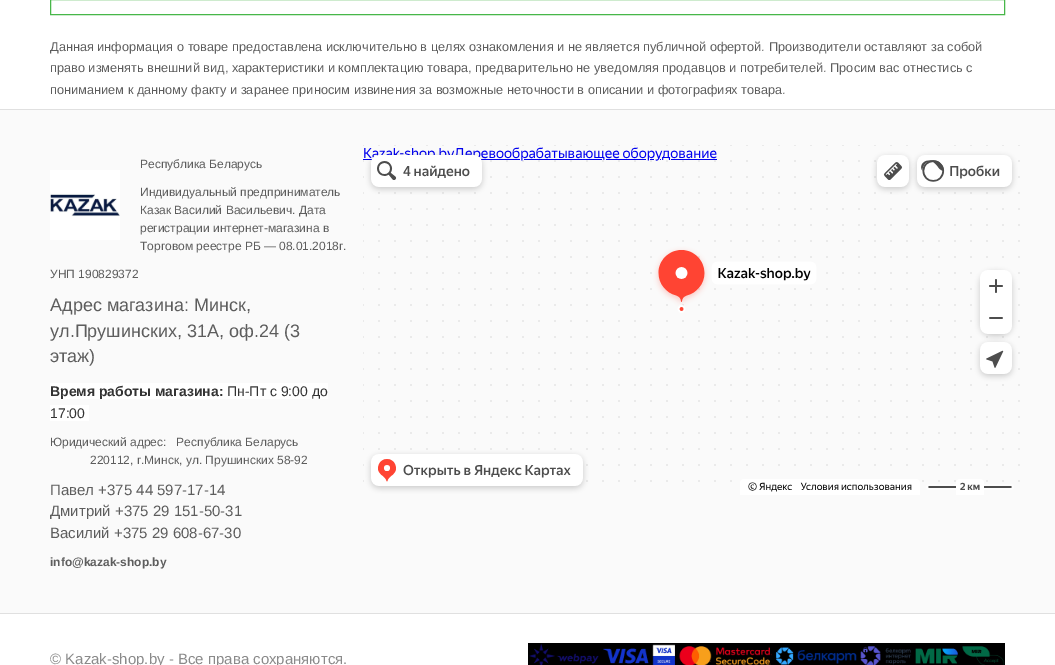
%!PS
<< /PageSize [1055 665] >> setpagedevice
/picture { 5 dict begin { /h /w /y /x /name } { exch def } forall
  gsave x y translate w h scale
  w h 8 [w 0 0 h 0 0] name (r) file false 3 colorimage grestore end } def
0 665 translate 1 -1 scale
4 setmiterlimit
1 setgray
0 0 1055 665 rectfill
0.278 0.718 0.286 setrgbcolor
50.5 -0.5 954 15 rectstroke
/LiberationSans-Regular [12.75 0 0 -12.75 0 0] selectfont
0.365 setgray
50 51 moveto (Данная информация о товаре предоставлена исключительно в целях ознакомления и не является публичной офертой. Производители оставляют за собой) show
50 72 moveto (право изменять внешний вид, характеристики и комплектацию товара, предварительно не уведомляя продавцов и потребителей. Просим вас отнестись с) show
50 94 moveto (пониманием к данному факту и заранее приносим извинения за возможные неточности в описании и фотографиях товара.) show
0.98 setgray
0 110 1055 503 rectfill
0.878 setgray
0 109 1055 1 rectfill
/LiberationSans-Regular [12 0 0 -12 0 0] selectfont
0.365 setgray
140 168 moveto (Республика Беларусь) show
(img1.rgb) 50 170 70 70 picture
140 196 moveto (Индивидуальный предприниматель) show
140 214 moveto (Казак Василий Васильевич. Дата) show
140 232 moveto (регистрации интернет-магазина в) show
140 250 moveto (Торговом реестре РБ — 08.01.2018г.) show
50 278 moveto (УНП 190829372) show
/LiberationSans-Regular [18 0 0 -18 0 0] selectfont
50 311 moveto (Адрес магазина: Минск,) show
50 337 moveto (ул.Прушинских, 31А, оф.24 \(3) show
50 362 moveto (этаж\)) show
1 setgray
50 383 278 16 rectfill
/LiberationSans-Bold [14 0 0 -14 0 0] selectfont
0.2 setgray
50 396 moveto (Время работы магазина:) show
/LiberationSans-Regular [14 0 0 -14 0 0] selectfont
227 396 moveto (Пн-Пт с 9:00 до) show
1 setgray
50 405 39 16 rectfill
0.2 setgray
50 418 moveto (17:00) show
/LiberationSans-Regular [12 0 0 -12 0 0] selectfont
0.365 setgray
50 446 moveto (Юридический адрес:   Республика Беларусь) show
90 464 moveto (220112, г.Минск, ул. Прушинских 58-92) show
/LiberationSans-Regular [15 0 0 -15 0 0] selectfont
50 495 moveto (Павел +375 44 597-17-14) show
50 516 moveto (Дмитрий +375 29 151-50-31) show
50 538 moveto (Василий +375 29 608-67-30) show
/LiberationSans-Bold [12 0 0 -12 0 0] selectfont
50 566 moveto (info@kazak-shop.by) show
(img2.rgb) 363 145 657 350 picture
0.878 setgray
0 613 1055 1 rectfill
/LiberationSans-Regular [15 0 0 -15 0 0] selectfont
0.541 setgray
50 664 moveto (© Kazak-shop.by - Все права сохраняются.) show
(img3.rgb) 528 643 477 22 picture
showpage
